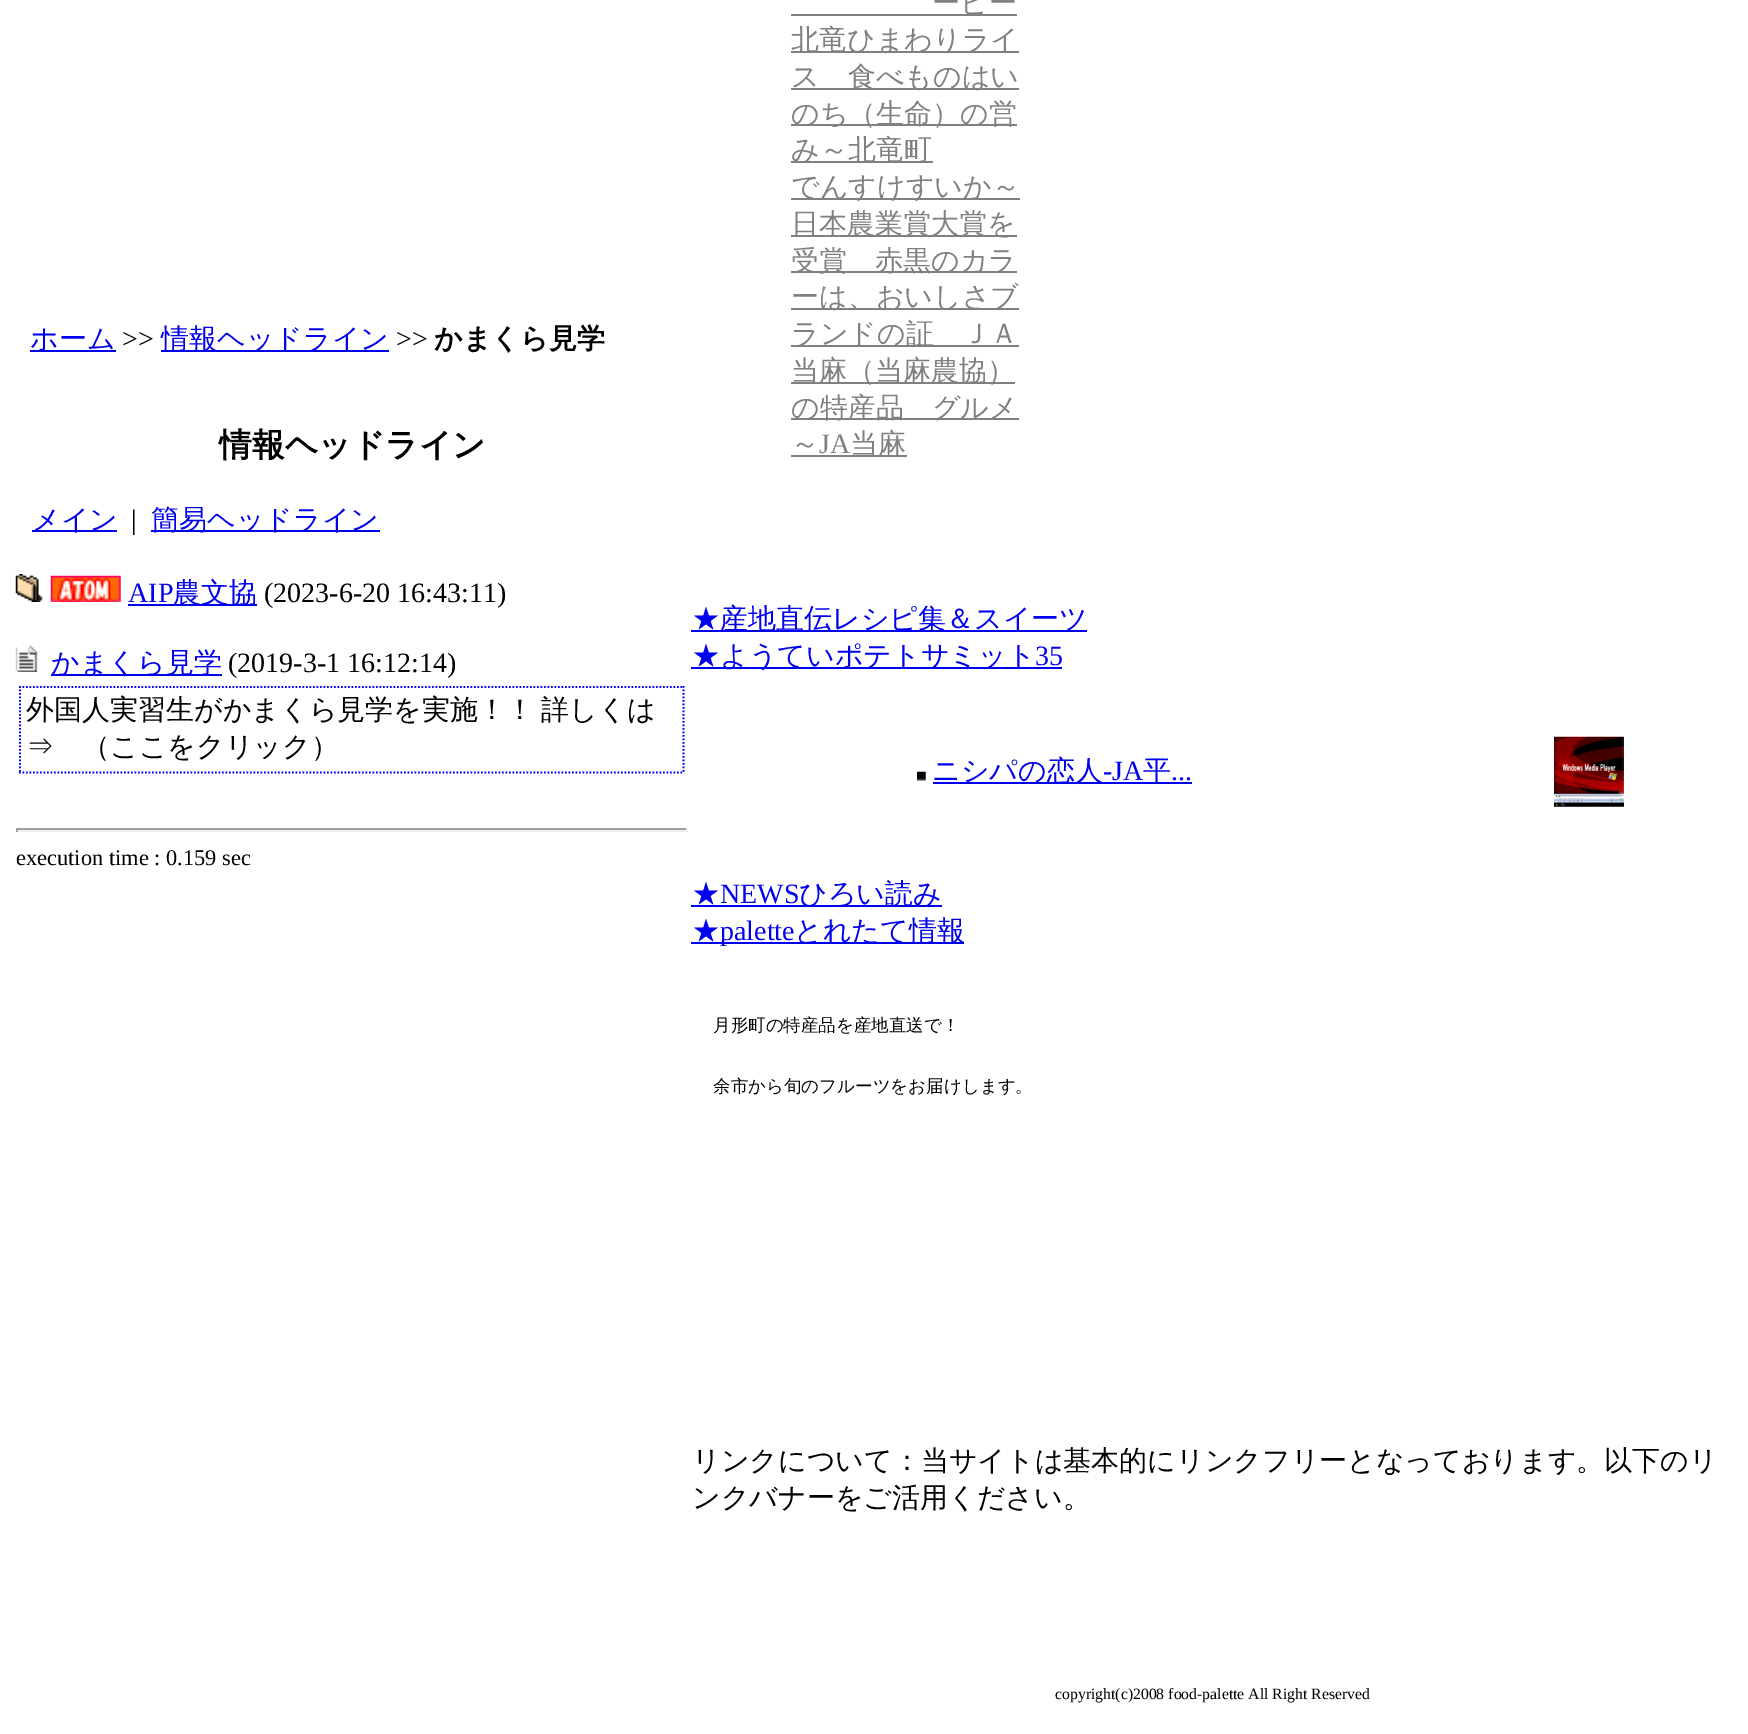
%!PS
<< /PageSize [1748 1734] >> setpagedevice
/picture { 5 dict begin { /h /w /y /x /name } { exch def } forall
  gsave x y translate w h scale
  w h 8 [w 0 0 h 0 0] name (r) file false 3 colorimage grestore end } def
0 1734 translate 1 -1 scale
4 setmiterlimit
1 setgray
0 0 1748 1734 rectfill
0 0 0.933 setrgbcolor
30 350 86 2 rectfill
/WenQuanYiZenHei-Medium [28 0 0 -28 0 0] selectfont
30 348 moveto (ホーム) show
/LiberationSerif-Regular [28 0 0 -28 0 0] selectfont
0 setgray
122 348 moveto (>>) show
0 0 0.933 setrgbcolor
161 350 228 2 rectfill
/WenQuanYiZenHei-Medium [28 0 0 -28 0 0] selectfont
161 348 moveto (情報ヘッドライン) show
/LiberationSerif-Regular [28 0 0 -28 0 0] selectfont
0 setgray
396 348 moveto (>>) show
/WenQuanYiZenHei-Bold [28 0 0 -28 0 0] selectfont
434 348 moveto (かまくら見学) show
/WenQuanYiZenHei-Bold [32.75 0 0 -32.75 0 0] selectfont
219 456 moveto (情報ヘッドライン) show
0 0 0.933 setrgbcolor
32 530 85 2 rectfill
/WenQuanYiZenHei-Medium [28 0 0 -28 0 0] selectfont
32 529 moveto (メイン) show
/LiberationSerif-Regular [28 0 0 -28 0 0] selectfont
0 setgray
131 529 moveto (|) show
0 0 0.933 setrgbcolor
151 530 229 2 rectfill
/WenQuanYiZenHei-Medium [28 0 0 -28 0 0] selectfont
151 529 moveto (簡易ヘッドライン) show
(img1.rgb) 15 574 28 28 picture
(img2.rgb) 50 575 71 27 picture
/LiberationSerif-Regular [28 0 0 -28 0 0] selectfont
128 602 moveto (AIP) show
128 604 129 2 rectfill
/WenQuanYiZenHei-Medium [28 0 0 -28 0 0] selectfont
173 602 moveto (農文協) show
/LiberationSerif-Regular [28 0 0 -28 0 0] selectfont
0 setgray
264 602 moveto (\(2023-6-20 16:43:11\)) show
(img3.rgb) 15 645 23 27 picture
0 0 0.933 setrgbcolor
51 674 171 2 rectfill
/WenQuanYiZenHei-Medium [28 0 0 -28 0 0] selectfont
51 672 moveto (かまくら見学) show
/LiberationSerif-Regular [28 0 0 -28 0 0] selectfont
0 setgray
228 672 moveto (\(2019-3-1 16:12:14\)) show
0 0 1 setrgbcolor
1.8 setlinewidth
[1.75 1.75] 0 setdash
newpath 19 687 moveto 684 687 lineto stroke
newpath 683.5 686 moveto 683.5 773.5 lineto stroke
newpath 19 772.5 moveto 684 772.5 lineto stroke
newpath 20 686 moveto 20 773.5 lineto stroke
/WenQuanYiZenHei-Medium [28 0 0 -28 0 0] selectfont
0 setgray
26 719 moveto -1 0 32 (外国人実習生がかまくら見学を実施！！ 詳しくは) widthshow
26 756 moveto (⇒　（ここをクリック）) show
0.624 setgray
16 828 672 2 rectfill
0.933 setgray
686 828 2 4 rectfill
16 830 672 2 rectfill
0.624 setgray
16 828 2 4 rectfill
/LiberationSerif-Regular [22.4 0 0 -22.4 0 0] selectfont
0 setgray
16 865 moveto (execution time : 0.159 sec) show
0.502 setgray
791 14 226 2 rectfill
/WenQuanYiZenHei-Medium [28 0 0 -28 0 0] selectfont
932 12 moveto (ーピー) show
791 51 228 2 rectfill
791 49 moveto (北竜ひまわりライ) show
791 88 228 2 rectfill
791 86 moveto (ス　食べものはい) show
791 124 226 2 rectfill
791 123 moveto (のち（生命）の営) show
791 161 142 2 rectfill
791 159 moveto (み～北竜町) show
791 198 229 2 rectfill
791 196 moveto (でんすけすいか～) show
791 235 226 2 rectfill
791 233 moveto (日本農業賞大賞を) show
791 271 226 2 rectfill
791 270 moveto (受賞　赤黒のカラ) show
791 308 228 2 rectfill
791 306 moveto (ーは、おいしさブ) show
791 345 228 2 rectfill
791 343 moveto (ランドの証　ＪＡ) show
791 382 224 2 rectfill
791 380 moveto (当麻（当麻農協）) show
791 418 228 2 rectfill
791 417 moveto (の特産品　グルメ) show
791 453 moveto (～) show
791 455 116 2 rectfill
/LiberationSerif-Regular [28 0 0 -28 0 0] selectfont
819 453 moveto (JA) show
/WenQuanYiZenHei-Medium [28 0 0 -28 0 0] selectfont
850 453 moveto (当麻) show
0 0 0.933 setrgbcolor
691 630 396 2 rectfill
692 628 moveto (★産地直伝レシピ集＆スイーツ) show
691 667 371 2 rectfill
692 665 moveto (★ようていポテトサミット) show
/LiberationSerif-Regular [28 0 0 -28 0 0] selectfont
1035 665 moveto (35) show
(img4.rgb) 917 771 9 10 picture
933 782 259 2 rectfill
/WenQuanYiZenHei-Medium [28 0 0 -28 0 0] selectfont
932 780 moveto (ニシパの恋人) show
/LiberationSerif-Regular [28 0 0 -28 0 0] selectfont
1103 780 moveto (-JA) show
/WenQuanYiZenHei-Medium [28 0 0 -28 0 0] selectfont
1143 780 moveto (平) show
/LiberationSerif-Regular [28 0 0 -28 0 0] selectfont
1171 780 moveto (...) show
(img5.rgb) 1554 736 70 71 picture
/WenQuanYiZenHei-Medium [28 0 0 -28 0 0] selectfont
692 903 moveto (★) show
/LiberationSerif-Regular [28 0 0 -28 0 0] selectfont
720 903 moveto (NEWS) show
691 905 251 2 rectfill
/WenQuanYiZenHei-Medium [28 0 0 -28 0 0] selectfont
799 903 moveto (ひろい読み) show
692 940 moveto (★) show
691 942 273 2 rectfill
/LiberationSerif-Regular [28 0 0 -28 0 0] selectfont
720 940 moveto (palette) show
/WenQuanYiZenHei-Medium [28 0 0 -28 0 0] selectfont
794 940 moveto (とれたて情報) show
/WenQuanYiZenHei-Medium [17.5 0 0 -17.5 0 0] selectfont
0 setgray
713 1031 moveto (月形町の特産品を産地直送で！) show
713 1092 moveto (余市から旬のフルーツをお届けします。) show
/WenQuanYiZenHei-Medium [28 0 0 -28 0 0] selectfont
692 1470 moveto (リンクについて：当サイトは基本的にリンクフリーとなっております。以下のリ) show
692 1507 moveto (ンクバナーをご活用ください。) show
/LiberationSerif-Regular [15.75 0 0 -15.75 0 0] selectfont
1055 1699 moveto (copyright\(c\)2008 food-palette All Right Reserved) show
showpage
